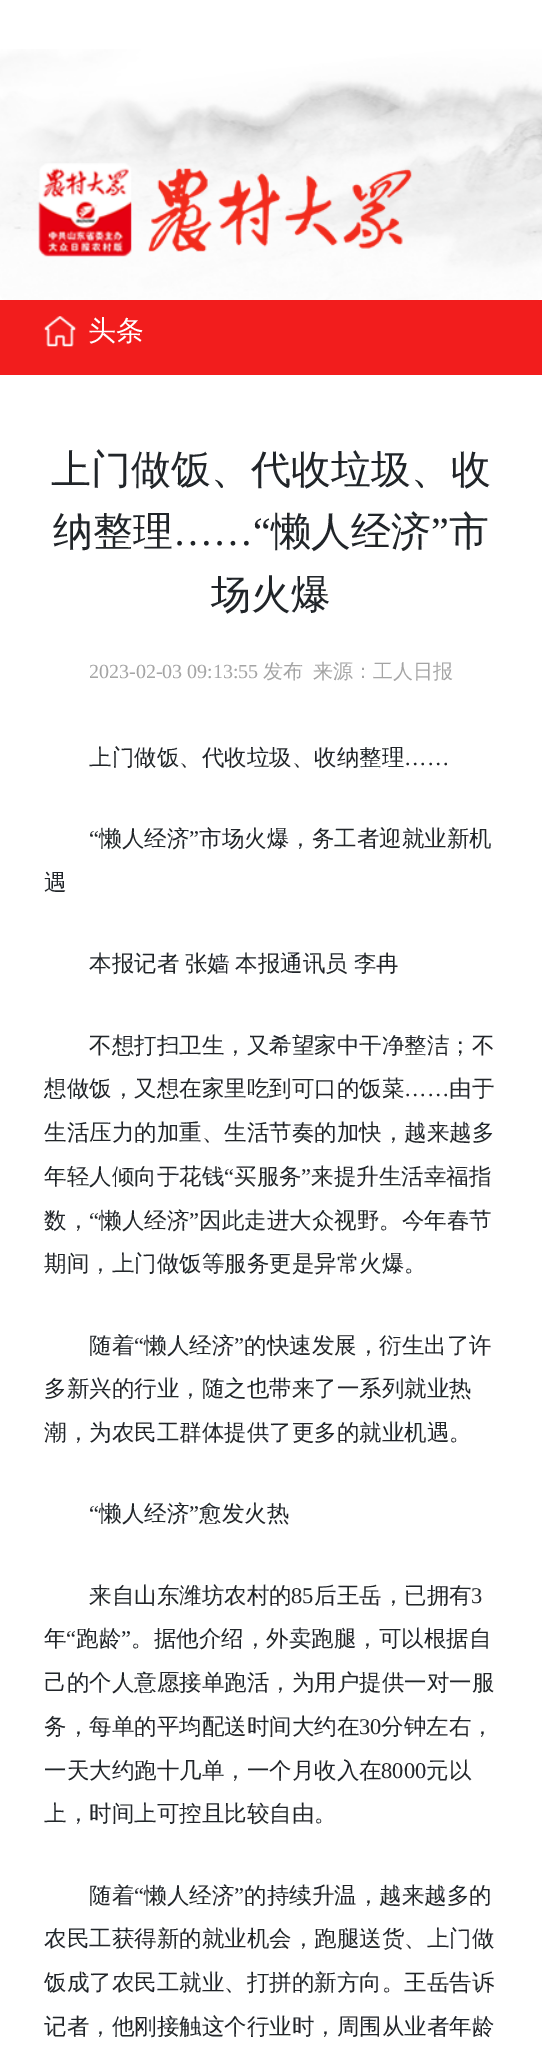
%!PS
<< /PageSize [542 2072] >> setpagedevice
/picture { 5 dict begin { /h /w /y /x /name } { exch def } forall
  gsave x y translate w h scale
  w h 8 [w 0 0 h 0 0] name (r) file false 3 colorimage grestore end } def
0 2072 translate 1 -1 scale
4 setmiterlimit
1 setgray
0 0 542 2072 rectfill
(img1.rgb) 0 49 542 251 picture
(img2.rgb) 38 163 94 94 picture
(img3.rgb) 148 168 264 84 picture
0.949 0.114 0.114 setrgbcolor
0 300 542 75 rectfill
(img4.rgb) 43 316 34 31 picture
/WenQuanYiZenHei-Medium [28 0 0 -28 0 0] selectfont
1 setgray
88 340 moveto (头条) show
/WenQuanYiZenHei-Medium [40 0 0 -40 0 0] selectfont
0.129 0.145 0.161 setrgbcolor
51 483 moveto (上门做饭、代收垃圾、收) show
53 545 moveto (纳整理) show
/LiberationSerif-Regular [40 0 0 -40 0 0] selectfont
173 545 moveto (……“) show
/WenQuanYiZenHei-Medium [40 0 0 -40 0 0] selectfont
271 545 moveto (懒人经济) show
/LiberationSerif-Regular [40 0 0 -40 0 0] selectfont
431 545 moveto (”) show
/WenQuanYiZenHei-Medium [40 0 0 -40 0 0] selectfont
449 545 moveto (市) show
211 608 moveto (场火爆) show
/LiberationSerif-Regular [20 0 0 -20 0 0] selectfont
0.643 setgray
89 678 moveto (2023-02-03 09:13:55) show
/WenQuanYiZenHei-Medium [20 0 0 -20 0 0] selectfont
263 678 moveto (发布) show
313 678 moveto (来源：工人日报) show
/WenQuanYiZenHei-Medium [22.5 0 0 -22.5 0 0] selectfont
0.129 0.145 0.161 setrgbcolor
89 765 moveto (上门做饭、代收垃圾、收纳整理) show
/LiberationSerif-Regular [22.5 0 0 -22.5 0 0] selectfont
404 765 moveto (……) show
89 846 moveto (“) show
/WenQuanYiZenHei-Medium [22.5 0 0 -22.5 0 0] selectfont
99 846 moveto (懒人经济) show
/LiberationSerif-Regular [22.5 0 0 -22.5 0 0] selectfont
189 846 moveto (”) show
/WenQuanYiZenHei-Medium [22.5 0 0 -22.5 0 0] selectfont
199 846 moveto (市场火爆，务工者迎就业新机) show
44 890 moveto (遇) show
89 971 moveto -1 0 32 (本报记者 张嫱 本报通讯员 李冉) widthshow
89 1053 moveto (不想打扫卫生，又希望家中干净整洁；不) show
44 1096 moveto (想做饭，又想在家里吃到可口的饭菜) show
/LiberationSerif-Regular [22.5 0 0 -22.5 0 0] selectfont
404 1096 moveto (……) show
/WenQuanYiZenHei-Medium [22.5 0 0 -22.5 0 0] selectfont
449 1096 moveto (由于) show
44 1140 moveto (生活压力的加重、生活节奏的加快，越来越多) show
44 1184 moveto (年轻人倾向于花钱) show
/LiberationSerif-Regular [22.5 0 0 -22.5 0 0] selectfont
224 1184 moveto (“) show
/WenQuanYiZenHei-Medium [22.5 0 0 -22.5 0 0] selectfont
234 1184 moveto (买服务) show
/LiberationSerif-Regular [22.5 0 0 -22.5 0 0] selectfont
301 1184 moveto (”) show
/WenQuanYiZenHei-Medium [22.5 0 0 -22.5 0 0] selectfont
311 1184 moveto (来提升生活幸福指) show
44 1228 moveto (数，) show
/LiberationSerif-Regular [22.5 0 0 -22.5 0 0] selectfont
89 1228 moveto (“) show
/WenQuanYiZenHei-Medium [22.5 0 0 -22.5 0 0] selectfont
99 1228 moveto (懒人经济) show
/LiberationSerif-Regular [22.5 0 0 -22.5 0 0] selectfont
189 1228 moveto (”) show
/WenQuanYiZenHei-Medium [22.5 0 0 -22.5 0 0] selectfont
199 1228 moveto (因此走进大众视野。今年春节) show
44 1271 moveto (期间，上门做饭等服务更是异常火爆。) show
89 1353 moveto (随着) show
/LiberationSerif-Regular [22.5 0 0 -22.5 0 0] selectfont
134 1353 moveto (“) show
/WenQuanYiZenHei-Medium [22.5 0 0 -22.5 0 0] selectfont
144 1353 moveto (懒人经济) show
/LiberationSerif-Regular [22.5 0 0 -22.5 0 0] selectfont
234 1353 moveto (”) show
/WenQuanYiZenHei-Medium [22.5 0 0 -22.5 0 0] selectfont
244 1353 moveto (的快速发展，衍生出了许) show
44 1396 moveto (多新兴的行业，随之也带来了一系列就业热) show
44 1440 moveto (潮，为农民工群体提供了更多的就业机遇。) show
/LiberationSerif-Regular [22.5 0 0 -22.5 0 0] selectfont
89 1521 moveto (“) show
/WenQuanYiZenHei-Medium [22.5 0 0 -22.5 0 0] selectfont
99 1521 moveto (懒人经济) show
/LiberationSerif-Regular [22.5 0 0 -22.5 0 0] selectfont
189 1521 moveto (”) show
/WenQuanYiZenHei-Medium [22.5 0 0 -22.5 0 0] selectfont
199 1521 moveto (愈发火热) show
89 1603 moveto (来自山东潍坊农村的) show
/LiberationSerif-Regular [22.5 0 0 -22.5 0 0] selectfont
291 1603 moveto (85) show
/WenQuanYiZenHei-Medium [22.5 0 0 -22.5 0 0] selectfont
314 1603 moveto (后王岳，已拥有) show
/LiberationSerif-Regular [22.5 0 0 -22.5 0 0] selectfont
471 1603 moveto (3) show
/WenQuanYiZenHei-Medium [22.5 0 0 -22.5 0 0] selectfont
44 1646 moveto (年) show
/LiberationSerif-Regular [22.5 0 0 -22.5 0 0] selectfont
66 1646 moveto (“) show
/WenQuanYiZenHei-Medium [22.5 0 0 -22.5 0 0] selectfont
76 1646 moveto (跑龄) show
/LiberationSerif-Regular [22.5 0 0 -22.5 0 0] selectfont
121 1646 moveto (”) show
/WenQuanYiZenHei-Medium [22.5 0 0 -22.5 0 0] selectfont
131 1646 moveto (。据他介绍，外卖跑腿，可以根据自) show
44 1690 moveto (己的个人意愿接单跑活，为用户提供一对一服) show
44 1734 moveto (务，每单的平均配送时间大约在) show
/LiberationSerif-Regular [22.5 0 0 -22.5 0 0] selectfont
359 1734 moveto (30) show
/WenQuanYiZenHei-Medium [22.5 0 0 -22.5 0 0] selectfont
381 1734 moveto (分钟左右，) show
44 1778 moveto (一天大约跑十几单，一个月收入在) show
/LiberationSerif-Regular [22.5 0 0 -22.5 0 0] selectfont
381 1778 moveto (8000) show
/WenQuanYiZenHei-Medium [22.5 0 0 -22.5 0 0] selectfont
426 1778 moveto (元以) show
44 1821 moveto (上，时间上可控且比较自由。) show
89 1903 moveto (随着) show
/LiberationSerif-Regular [22.5 0 0 -22.5 0 0] selectfont
134 1903 moveto (“) show
/WenQuanYiZenHei-Medium [22.5 0 0 -22.5 0 0] selectfont
144 1903 moveto (懒人经济) show
/LiberationSerif-Regular [22.5 0 0 -22.5 0 0] selectfont
234 1903 moveto (”) show
/WenQuanYiZenHei-Medium [22.5 0 0 -22.5 0 0] selectfont
244 1903 moveto (的持续升温，越来越多的) show
44 1946 moveto (农民工获得新的就业机会，跑腿送货、上门做) show
44 1990 moveto (饭成了农民工就业、打拼的新方向。王岳告诉) show
44 2034 moveto (记者，他刚接触这个行业时，周围从业者年龄) show
showpage
